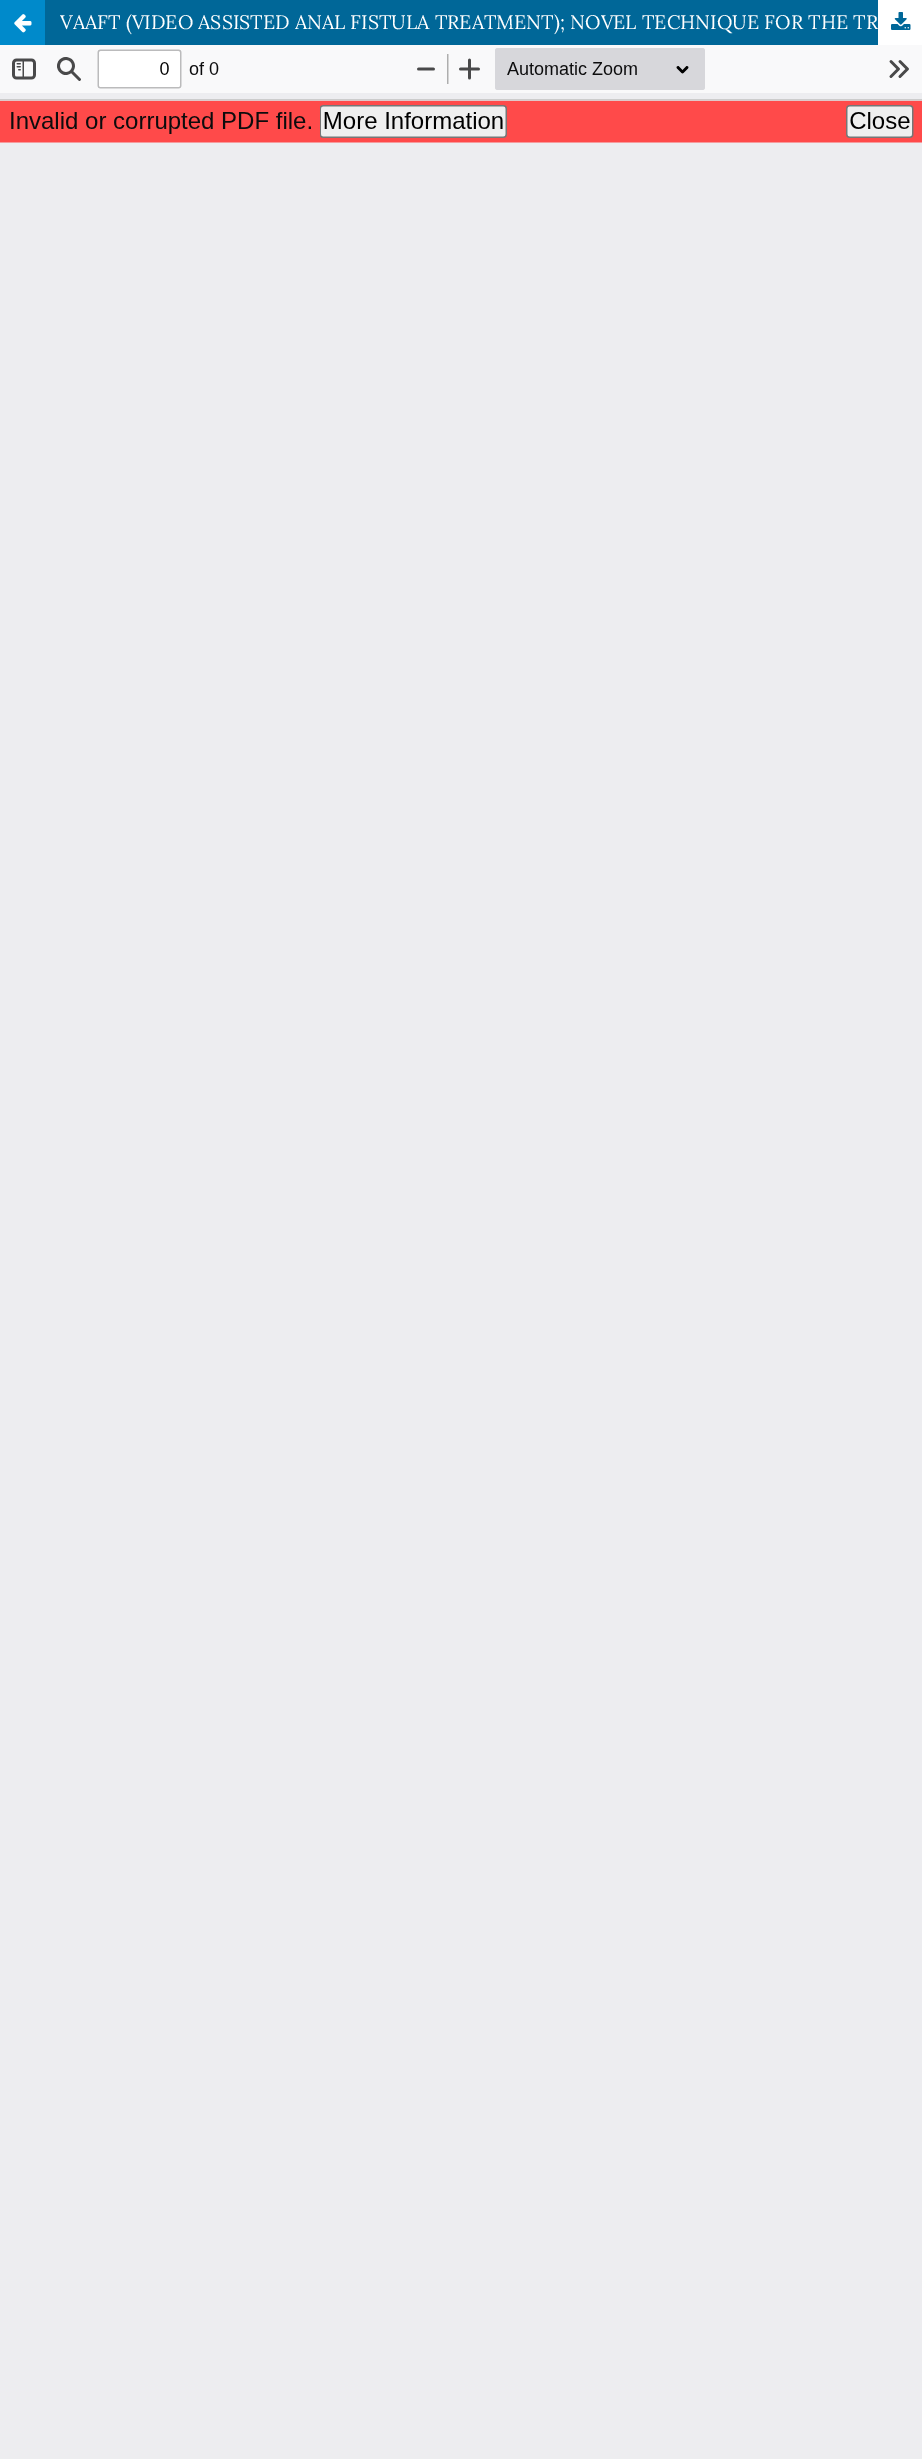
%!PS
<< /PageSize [922 2459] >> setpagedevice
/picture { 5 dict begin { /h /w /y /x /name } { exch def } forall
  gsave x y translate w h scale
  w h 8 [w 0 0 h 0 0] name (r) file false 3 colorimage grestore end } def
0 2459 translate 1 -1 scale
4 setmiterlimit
1 setgray
0 0 922 2459 rectfill
0 0.404 0.596 setrgbcolor
45 0 833 45 rectfill
0 0.541 0.796 setrgbcolor
0 0 45 45 rectfill
(img1.rgb) 14 14 18 19 picture
/Lora-Regular [19.55 0 0 -19.55 0 0] selectfont
1 setgray
60 29 moveto (VAAFT \(VIDEO ASSISTED ANAL FISTULA TREATMENT\); NOVEL TECHNIQUE FOR THE TR) show
(img2.rgb) 891 12 20 18 picture
(img3.rgb) 0 45 922 2414 picture
showpage
